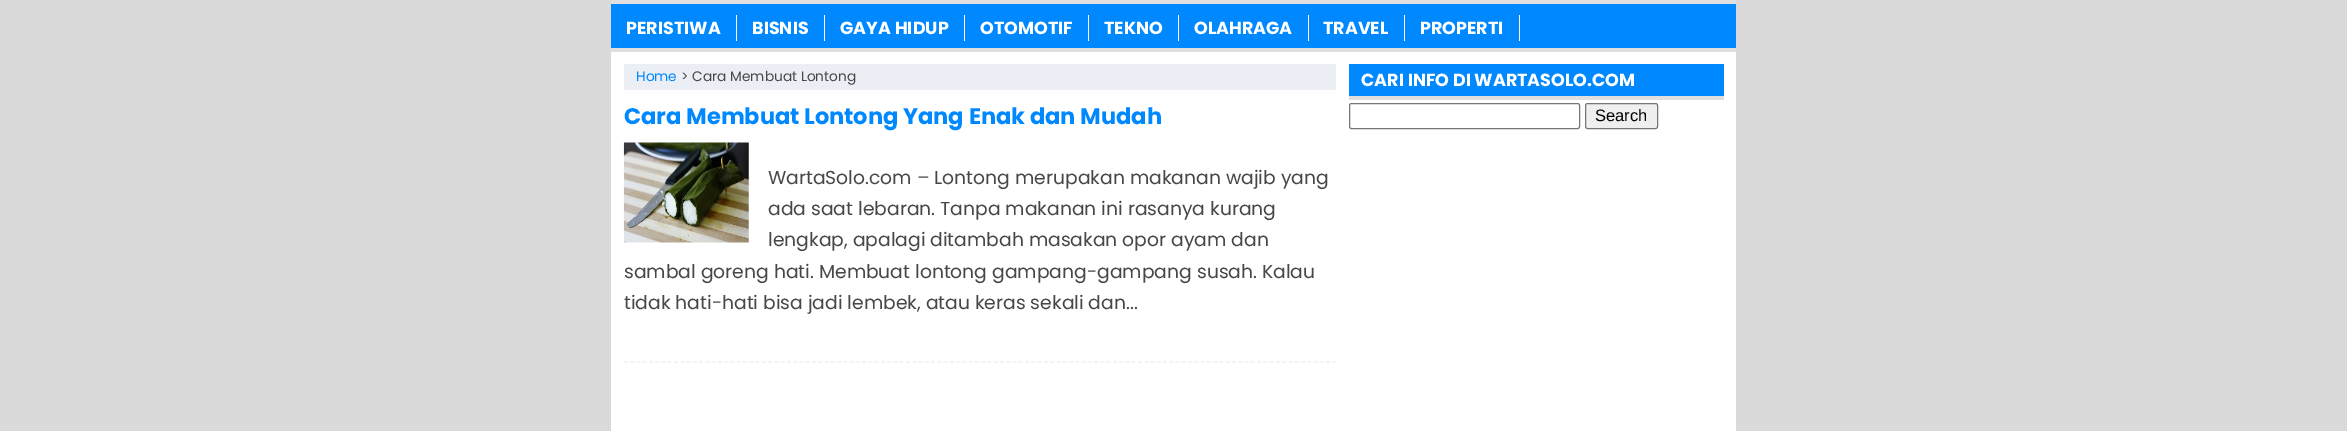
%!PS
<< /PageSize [2347 431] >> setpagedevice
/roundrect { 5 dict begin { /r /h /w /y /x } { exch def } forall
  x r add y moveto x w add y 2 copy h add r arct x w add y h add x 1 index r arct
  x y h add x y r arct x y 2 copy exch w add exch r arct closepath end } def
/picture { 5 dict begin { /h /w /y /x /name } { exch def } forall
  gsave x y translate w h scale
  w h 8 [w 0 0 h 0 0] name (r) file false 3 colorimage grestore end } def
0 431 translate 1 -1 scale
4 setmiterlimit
0.855 setgray
0 0 2347 431 rectfill
1 setgray
611 52 1125 379 rectfill
0 0.533 1 setrgbcolor
611 4 1125 44 rectfill
0.875 setgray
611 0 1125 4 rectfill
611 48 1125 4 rectfill
1 setgray
736 15 1 26 rectfill
/Poppins-Bold [17.5 0 0 -17.5 0 0] selectfont
626 34 moveto (PERISTIWA) show
824 15 1 26 rectfill
752 34 moveto (BISNIS) show
964 15 1 26 rectfill
840 34 moveto (GAYA HIDUP) show
1088 15 1 26 rectfill
980 34 moveto (OTOMOTIF) show
1178 15 1 26 rectfill
1104 34 moveto (TEKNO) show
1308 15 1 26 rectfill
1194 34 moveto (OLAHRAGA) show
1404 15 1 26 rectfill
1323 34 moveto (TRAVEL) show
1519 15 1 26 rectfill
1420 34 moveto (PROPERTI) show
0.925 0.933 0.961 setrgbcolor
624 64 712 26 rectfill
/Poppins-Regular [13.75 0 0 -13.75 0 0] selectfont
0 0.533 1 setrgbcolor
636 81 moveto (Home) show
0.278 setgray
681 81 moveto (> Cara Membuat Lontong) show
0.937 setgray
1.2 setlinewidth
[3.75 2.52] 0 setdash
newpath 624 362 moveto 1336 362 lineto stroke
/Poppins-Bold [22.5 0 0 -22.5 0 0] selectfont
0 0.533 1 setrgbcolor
624 124 moveto (Cara Membuat Lontong Yang Enak dan Mudah) show
(img1.rgb) 623 142 126 101 picture
/Poppins-Regular [18.75 0 0 -18.75 0 0] selectfont
0.278 setgray
768 184 moveto (WartaSolo.com – Lontong merupakan makanan wajib yang) show
768 215 moveto (ada saat lebaran. Tanpa makanan ini rasanya kurang) show
768 246 moveto (lengkap, apalagi ditambah masakan opor ayam dan) show
624 278 moveto (sambal goreng hati. Membuat lontong gampang-gampang susah. Kalau) show
624 309 moveto (tidak hati-hati bisa jadi lembek, atau keras sekali dan...) show
0 0.533 1 setrgbcolor
1349 64 375 32 rectfill
0.875 setgray
1349 96 375 4 rectfill
/Poppins-Bold [17.5 0 0 -17.5 0 0] selectfont
1 setgray
1361 86 moveto (CARI INFO DI WARTASOLO.COM) show
0.463 setgray
1 setlinewidth
[] 0 setdash
1349.5 103.5 230 25 2 roundrect stroke
0.937 setgray
1585.5 103.5 72 25 2 roundrect gsave fill grestore
0.463 setgray
stroke
/LiberationSans-Regular [16.5 0 0 -16.5 0 0] selectfont
0 setgray
1595 121 moveto (Search) show
showpage
